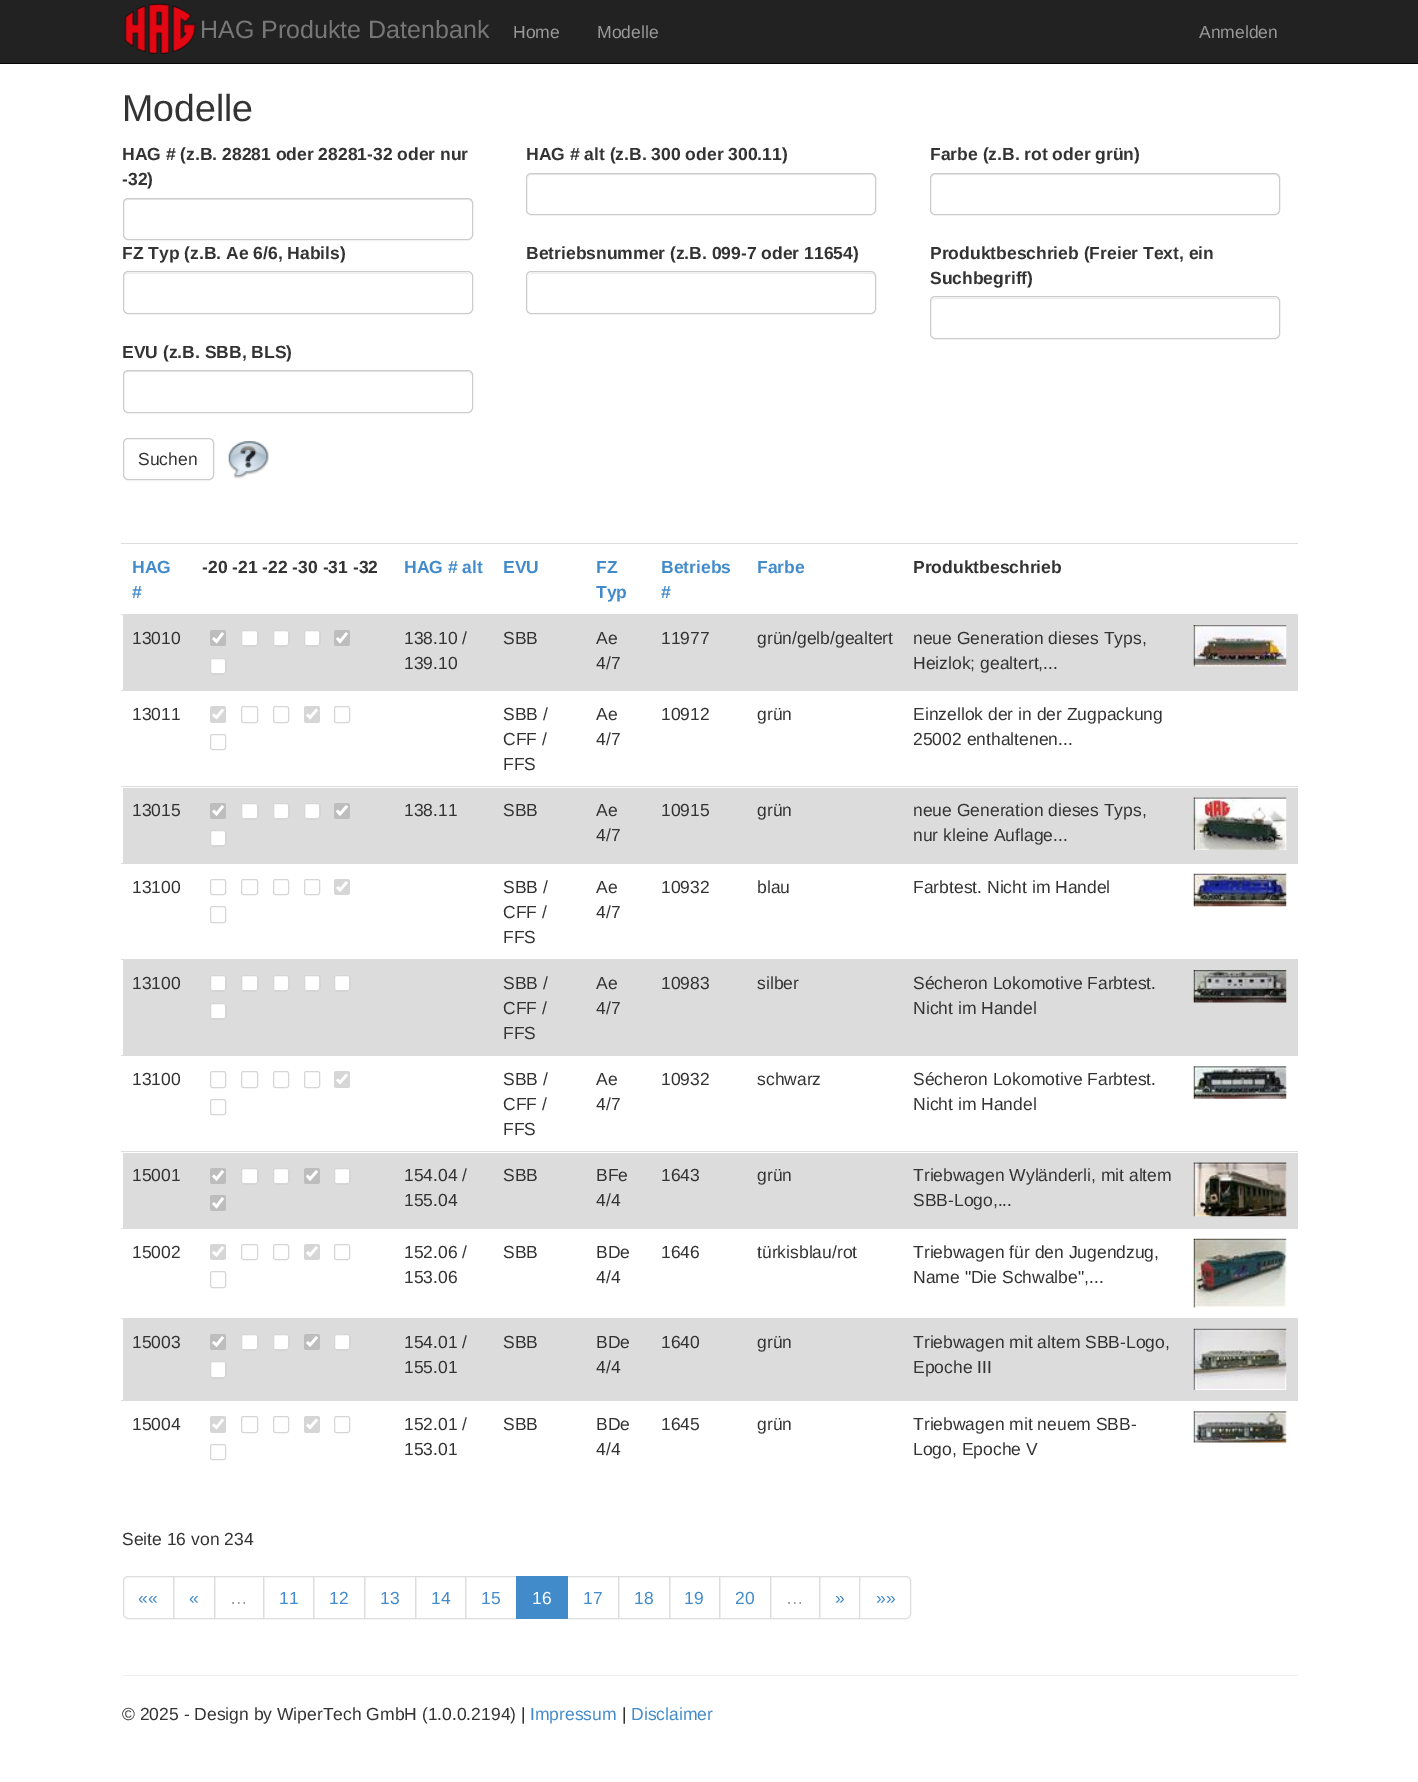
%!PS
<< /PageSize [1418 1782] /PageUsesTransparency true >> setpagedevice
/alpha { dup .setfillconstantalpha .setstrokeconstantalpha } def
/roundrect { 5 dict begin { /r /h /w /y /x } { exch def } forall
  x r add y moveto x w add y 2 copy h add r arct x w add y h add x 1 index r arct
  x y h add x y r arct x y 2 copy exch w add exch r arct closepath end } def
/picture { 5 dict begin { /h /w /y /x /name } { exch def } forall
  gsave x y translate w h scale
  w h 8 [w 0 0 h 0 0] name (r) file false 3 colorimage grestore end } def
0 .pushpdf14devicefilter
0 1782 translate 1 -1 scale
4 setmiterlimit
1 setgray
0 0 1418 1782 rectfill
0.133 setgray
0 0 1418 63 rectfill
0.031 setgray
0 63 1418 1 rectfill
(img1.rgb) 124 3 72 51 picture
/LiberationSans-Regular [25 0 0 -25 0 0] selectfont
0.467 setgray
200 38 moveto (HAG Produkte Datenbank) show
/LiberationSans-Regular [17.5 0 0 -17.5 0 0] selectfont
0.6 setgray
513 38 moveto (Home) show
597 38 moveto (Modelle) show
1199 38 moveto (Anmelden) show
/LiberationSans-Regular [37.5 0 0 -37.5 0 0] selectfont
0.2 setgray
122 121 moveto (Modelle) show
/LiberationSans-Bold [17.5 0 0 -17.5 0 0] selectfont
122 160 moveto (HAG # \(z.B. 28281 oder 28281-32 oder nur) show
122 185 moveto (-32\)) show
0.925 setgray
newpath 128 200 moveto 468 200 lineto 470 200 471 202 471 204 curveto 471 203 lineto 471 201 469 199 467 199 curveto 128 199 lineto 126 199 124 201 124 203 curveto 124 204 lineto 124 202 125 200 128 200 curveto closepath fill
0.8 setgray
123.5 198.5 349 41 4.5 roundrect stroke
0.2 setgray
526 160 moveto (HAG # alt \(z.B. 300 oder 300.11\)) show
0.925 setgray
newpath 531 175 moveto 871 175 lineto 873 175 875 177 875 179 curveto 875 178 lineto 875 176 873 174 871 174 curveto 532 174 lineto 530 174 528 176 528 178 curveto 528 179 lineto 528 177 529 175 531 175 curveto closepath fill
0.8 setgray
526.5 173.5 349 41 4.5 roundrect stroke
0.2 setgray
930 160 moveto (Farbe \(z.B. rot oder grün\)) show
0.925 setgray
newpath 935 175 moveto 1275 175 lineto 1277 175 1279 177 1279 179 curveto 1279 178 lineto 1279 176 1277 174 1275 174 curveto 935 174 lineto 933 174 931 176 931 178 curveto 931 179 lineto 931 177 933 175 935 175 curveto closepath fill
0.8 setgray
930.5 173.5 349 41 4.5 roundrect stroke
0.2 setgray
122 259 moveto (FZ Typ \(z.B. Ae 6/6, Habils\)) show
0.925 setgray
newpath 128 274 moveto 468 274 lineto 470 274 471 275 471 278 curveto 471 277 lineto 471 275 469 273 467 273 curveto 128 273 lineto 126 273 124 275 124 277 curveto 124 278 lineto 124 275 125 274 128 274 curveto closepath fill
0.8 setgray
123.5 271.5 349 42 4.5 roundrect stroke
0.2 setgray
526 259 moveto (Betriebsnummer \(z.B. 099-7 oder 11654\)) show
0.925 setgray
newpath 531 274 moveto 871 274 lineto 873 274 875 275 875 278 curveto 875 277 lineto 875 275 873 273 871 273 curveto 532 273 lineto 530 273 528 275 528 277 curveto 528 278 lineto 528 275 529 274 531 274 curveto closepath fill
0.8 setgray
526.5 271.5 349 42 4.5 roundrect stroke
0.2 setgray
930 259 moveto (Produktbeschrieb \(Freier Text, ein) show
930 284 moveto (Suchbegriff\)) show
0.925 setgray
newpath 935 299 moveto 1275 299 lineto 1277 299 1279 300 1279 302 curveto 1279 300 1277 298 1275 298 curveto 935 298 lineto 933 298 931 300 931 302 curveto 931 300 933 299 935 299 curveto closepath fill
0.8 setgray
930.5 296.5 349 42 4.5 roundrect stroke
0.2 setgray
122 358 moveto (EVU \(z.B. SBB, BLS\)) show
0.925 setgray
newpath 128 372 moveto 468 372 lineto 470 372 471 374 471 376 curveto 471 375 lineto 471 373 469 371 467 371 curveto 128 371 lineto 126 371 124 373 124 375 curveto 124 376 lineto 124 374 125 372 128 372 curveto closepath fill
0.8 setgray
123.5 370.5 349 42 4.5 roundrect stroke
123.5 438.5 90 41 4.5 roundrect stroke
/LiberationSans-Regular [17.5 0 0 -17.5 0 0] selectfont
0.2 setgray
138 465 moveto (Suchen) show
(img2.rgb) 228 441 41 38 picture
0.867 setgray
121 543 1177 1 rectfill
/LiberationSans-Bold [17.5 0 0 -17.5 0 0] selectfont
0.259 0.545 0.792 setrgbcolor
132 573 moveto (HAG) show
132 598 moveto (#) show
0.2 setgray
202 573 moveto (-20 -21 -22 -30 -31 -32) show
0.259 0.545 0.792 setrgbcolor
404 573 moveto (HAG # alt) show
503 573 moveto (EVU) show
596 573 moveto (FZ) show
596 598 moveto (Typ) show
661 573 moveto (Betriebs) show
661 598 moveto (#) show
757 573 moveto (Farbe) show
0.2 setgray
913 573 moveto (Produktbeschrieb) show
0.863 setgray
123 615 1175 76 rectfill
0.867 setgray
121 614 1177 1 rectfill
(img3.rgb) 1193 625 94 42 picture
/LiberationSans-Regular [17.5 0 0 -17.5 0 0] selectfont
0.2 setgray
132 644 moveto (13010) show
0.741 setgray
210 630 16 16 2.5 roundrect fill
1 setgray
2.6 setlinewidth
newpath 213 638 moveto 216.5 641.5 lineto 223 633 lineto stroke
241 630 17 16 2.5 roundrect fill
0.3 alpha
0.463 setgray
1 setlinewidth
241.5 630.5 16 15 2 roundrect stroke
1 alpha
1 setgray
273 630 16 16 2.5 roundrect fill
0.3 alpha
0.463 setgray
273.5 630.5 15 15 2 roundrect stroke
1 alpha
1 setgray
304 630 16 16 2.5 roundrect fill
0.3 alpha
0.463 setgray
304.5 630.5 15 15 2 roundrect stroke
1 alpha
0.741 setgray
334 630 16 16 2.5 roundrect fill
1 setgray
2.6 setlinewidth
newpath 337 638 moveto 340 641.5 lineto 347 633 lineto stroke
210 658 16 16 2.5 roundrect fill
0.3 alpha
0.463 setgray
1 setlinewidth
210.5 658.5 15 15 2 roundrect stroke
1 alpha
0.2 setgray
404 644 moveto (138.10 /) show
404 669 moveto (139.10) show
503 644 moveto (SBB) show
596 644 moveto (Ae) show
596 669 moveto (4/7) show
661 644 moveto (11977) show
757 644 moveto (grün/gelb/gealtert) show
913 644 moveto (neue Generation dieses Typs,) show
913 669 moveto (Heizlok; gealtert,...) show
0.867 setgray
121 690 2 1 rectfill
0.2 setgray
132 720 moveto (13011) show
0.839 setgray
210 706 16 17 2.5 roundrect fill
1 setgray
2.6 setlinewidth
newpath 213 714.5 moveto 216.5 717.5 lineto 223 709.5 lineto stroke
0.839 setgray
1 setlinewidth
241.5 706.5 16 16 2 roundrect stroke
273.5 706.5 15 16 2 roundrect stroke
304 706 16 17 2.5 roundrect fill
1 setgray
2.6 setlinewidth
newpath 307 714.5 moveto 310 717.5 lineto 317 709.5 lineto stroke
0.839 setgray
1 setlinewidth
334.5 706.5 15 16 2 roundrect stroke
210.5 734.5 15 15 2 roundrect stroke
0.2 setgray
503 720 moveto (SBB /) show
503 745 moveto (CFF /) show
503 770 moveto (FFS) show
596 720 moveto (Ae) show
596 745 moveto (4/7) show
661 720 moveto (10912) show
757 720 moveto (grün) show
913 720 moveto (Einzellok der in der Zugpackung) show
913 745 moveto (25002 enthaltenen...) show
0.863 setgray
123 788 1175 76 rectfill
0.867 setgray
121 786 1177 1 rectfill
(img4.rgb) 1193 797 94 53 picture
0.2 setgray
132 816 moveto (13015) show
0.741 setgray
210 803 16 16 2.5 roundrect fill
1 setgray
2.6 setlinewidth
newpath 213 810.5 moveto 216.5 814 lineto 223 806 lineto stroke
241 803 17 16 2.5 roundrect fill
0.3 alpha
0.463 setgray
1 setlinewidth
241.5 803.5 16 15 2 roundrect stroke
1 alpha
1 setgray
273 803 16 16 2.5 roundrect fill
0.3 alpha
0.463 setgray
273.5 803.5 15 15 2 roundrect stroke
1 alpha
1 setgray
304 803 16 16 2.5 roundrect fill
0.3 alpha
0.463 setgray
304.5 803.5 15 15 2 roundrect stroke
1 alpha
0.741 setgray
334 803 16 16 2.5 roundrect fill
1 setgray
2.6 setlinewidth
newpath 337 810.5 moveto 340 814 lineto 347 806 lineto stroke
210 830 16 16 2.5 roundrect fill
0.3 alpha
0.463 setgray
1 setlinewidth
210.5 830.5 15 15 2 roundrect stroke
1 alpha
0.2 setgray
404 816 moveto (138.11) show
503 816 moveto (SBB) show
596 816 moveto (Ae) show
596 841 moveto (4/7) show
661 816 moveto (10915) show
757 816 moveto (grün) show
913 816 moveto (neue Generation dieses Typs,) show
913 841 moveto (nur kleine Auflage...) show
0.867 setgray
121 863 2 1 rectfill
0.2 setgray
132 893 moveto (13100) show
0.839 setgray
210.5 879.5 15 15 2 roundrect stroke
241.5 879.5 16 15 2 roundrect stroke
273.5 879.5 15 15 2 roundrect stroke
304.5 879.5 15 15 2 roundrect stroke
334 879 16 16 2.5 roundrect fill
1 setgray
2.6 setlinewidth
newpath 337 887 moveto 340 890 lineto 347 882 lineto stroke
0.839 setgray
1 setlinewidth
210.5 906.5 15 16 2 roundrect stroke
0.2 setgray
503 893 moveto (SBB /) show
503 918 moveto (CFF /) show
503 943 moveto (FFS) show
596 893 moveto (Ae) show
596 918 moveto (4/7) show
661 893 moveto (10932) show
757 893 moveto (blau) show
913 893 moveto (Farbtest. Nicht im Handel) show
(img5.rgb) 1193 873 94 34 picture
0.863 setgray
123 960 1175 96 rectfill
0.867 setgray
121 959 1177 1 rectfill
(img6.rgb) 1193 970 94 33 picture
0.2 setgray
132 989 moveto (13100) show
1 setgray
210 975 16 16 2.5 roundrect fill
0.3 alpha
0.463 setgray
210.5 975.5 15 15 2 roundrect stroke
1 alpha
1 setgray
241 975 17 16 2.5 roundrect fill
0.3 alpha
0.463 setgray
241.5 975.5 16 15 2 roundrect stroke
1 alpha
1 setgray
273 975 16 16 2.5 roundrect fill
0.3 alpha
0.463 setgray
273.5 975.5 15 15 2 roundrect stroke
1 alpha
1 setgray
304 975 16 16 2.5 roundrect fill
0.3 alpha
0.463 setgray
304.5 975.5 15 15 2 roundrect stroke
1 alpha
1 setgray
334 975 16 16 2.5 roundrect fill
0.3 alpha
0.463 setgray
334.5 975.5 15 15 2 roundrect stroke
1 alpha
1 setgray
210 1003 16 16 2.5 roundrect fill
0.3 alpha
0.463 setgray
210.5 1003.5 15 15 2 roundrect stroke
1 alpha
0.2 setgray
503 989 moveto (SBB /) show
503 1014 moveto (CFF /) show
503 1039 moveto (FFS) show
596 989 moveto (Ae) show
596 1014 moveto (4/7) show
661 989 moveto (10983) show
757 989 moveto (silber) show
913 989 moveto (Sécheron Lokomotive Farbtest.) show
913 1014 moveto (Nicht im Handel) show
0.867 setgray
121 1055 2 1 rectfill
0.2 setgray
132 1085 moveto (13100) show
0.839 setgray
210.5 1071.5 15 16 2 roundrect stroke
241.5 1071.5 16 16 2 roundrect stroke
273.5 1071.5 15 16 2 roundrect stroke
304.5 1071.5 15 16 2 roundrect stroke
334 1071 16 17 2.5 roundrect fill
1 setgray
2.6 setlinewidth
newpath 337 1079.5 moveto 340 1082.5 lineto 347 1074.5 lineto stroke
0.839 setgray
1 setlinewidth
210.5 1099.5 15 15 2 roundrect stroke
0.2 setgray
503 1085 moveto (SBB /) show
503 1110 moveto (CFF /) show
503 1135 moveto (FFS) show
596 1085 moveto (Ae) show
596 1110 moveto (4/7) show
661 1085 moveto (10932) show
757 1085 moveto (schwarz) show
913 1085 moveto (Sécheron Lokomotive Farbtest.) show
913 1110 moveto (Nicht im Handel) show
(img7.rgb) 1193 1066 94 33 picture
0.863 setgray
123 1153 1175 76 rectfill
0.867 setgray
121 1151 1177 1 rectfill
(img8.rgb) 1193 1162 94 55 picture
0.2 setgray
132 1181 moveto (15001) show
0.741 setgray
210 1168 16 16 2.5 roundrect fill
1 setgray
2.6 setlinewidth
newpath 213 1175.5 moveto 216.5 1179 lineto 223 1171 lineto stroke
241 1168 17 16 2.5 roundrect fill
0.3 alpha
0.463 setgray
1 setlinewidth
241.5 1168.5 16 15 2 roundrect stroke
1 alpha
1 setgray
273 1168 16 16 2.5 roundrect fill
0.3 alpha
0.463 setgray
273.5 1168.5 15 15 2 roundrect stroke
1 alpha
0.741 setgray
304 1168 16 16 2.5 roundrect fill
1 setgray
2.6 setlinewidth
newpath 307 1175.5 moveto 310 1179 lineto 317 1171 lineto stroke
334 1168 16 16 2.5 roundrect fill
0.3 alpha
0.463 setgray
1 setlinewidth
334.5 1168.5 15 15 2 roundrect stroke
1 alpha
0.741 setgray
210 1195 16 16 2.5 roundrect fill
1 setgray
2.6 setlinewidth
newpath 213 1203 moveto 216.5 1206.5 lineto 223 1198 lineto stroke
0.2 setgray
404 1181 moveto (154.04 /) show
404 1206 moveto (155.04) show
503 1181 moveto (SBB) show
596 1181 moveto (BFe) show
596 1206 moveto (4/4) show
661 1181 moveto (1643) show
757 1181 moveto (grün) show
913 1181 moveto (Triebwagen Wyländerli, mit altem) show
913 1206 moveto (SBB-Logo,...) show
0.867 setgray
121 1228 2 1 rectfill
0.2 setgray
132 1258 moveto (15002) show
0.839 setgray
210 1244 16 16 2.5 roundrect fill
1 setgray
newpath 213 1252 moveto 216.5 1255 lineto 223 1247 lineto stroke
0.839 setgray
1 setlinewidth
241.5 1244.5 16 15 2 roundrect stroke
273.5 1244.5 15 15 2 roundrect stroke
304 1244 16 16 2.5 roundrect fill
1 setgray
2.6 setlinewidth
newpath 307 1252 moveto 310 1255 lineto 317 1247 lineto stroke
0.839 setgray
1 setlinewidth
334.5 1244.5 15 15 2 roundrect stroke
210.5 1271.5 15 16 2 roundrect stroke
0.2 setgray
404 1258 moveto (152.06 /) show
404 1283 moveto (153.06) show
503 1258 moveto (SBB) show
596 1258 moveto (BDe) show
596 1283 moveto (4/4) show
661 1258 moveto (1646) show
757 1258 moveto (türkisblau/rot) show
913 1258 moveto (Triebwagen für den Jugendzug,) show
913 1283 moveto (Name "Die Schwalbe",...) show
(img9.rgb) 1193 1238 94 70 picture
0.863 setgray
123 1319 1175 82 rectfill
0.867 setgray
121 1318 1177 1 rectfill
(img10.rgb) 1193 1328 94 62 picture
0.2 setgray
132 1348 moveto (15003) show
0.741 setgray
210 1334 16 16 2.5 roundrect fill
1 setgray
2.6 setlinewidth
newpath 213 1342 moveto 216.5 1345 lineto 223 1337 lineto stroke
241 1334 17 16 2.5 roundrect fill
0.3 alpha
0.463 setgray
1 setlinewidth
241.5 1334.5 16 15 2 roundrect stroke
1 alpha
1 setgray
273 1334 16 16 2.5 roundrect fill
0.3 alpha
0.463 setgray
273.5 1334.5 15 15 2 roundrect stroke
1 alpha
0.741 setgray
304 1334 16 16 2.5 roundrect fill
1 setgray
2.6 setlinewidth
newpath 307 1342 moveto 310 1345 lineto 317 1337 lineto stroke
334 1334 16 16 2.5 roundrect fill
0.3 alpha
0.463 setgray
1 setlinewidth
334.5 1334.5 15 15 2 roundrect stroke
1 alpha
1 setgray
210 1361 16 17 2.5 roundrect fill
0.3 alpha
0.463 setgray
210.5 1361.5 15 16 2 roundrect stroke
1 alpha
0.2 setgray
404 1348 moveto (154.01 /) show
404 1373 moveto (155.01) show
503 1348 moveto (SBB) show
596 1348 moveto (BDe) show
596 1373 moveto (4/4) show
661 1348 moveto (1640) show
757 1348 moveto (grün) show
913 1348 moveto (Triebwagen mit altem SBB-Logo,) show
913 1373 moveto (Epoche III) show
0.867 setgray
121 1400 2 1 rectfill
0.2 setgray
132 1430 moveto (15004) show
0.839 setgray
210 1416 16 17 2.5 roundrect fill
1 setgray
2.6 setlinewidth
newpath 213 1424.5 moveto 216.5 1427.5 lineto 223 1419.5 lineto stroke
0.839 setgray
1 setlinewidth
241.5 1416.5 16 16 2 roundrect stroke
273.5 1416.5 15 16 2 roundrect stroke
304 1416 16 17 2.5 roundrect fill
1 setgray
2.6 setlinewidth
newpath 307 1424.5 moveto 310 1427.5 lineto 317 1419.5 lineto stroke
0.839 setgray
1 setlinewidth
334.5 1416.5 15 16 2 roundrect stroke
210.5 1444.5 15 15 2 roundrect stroke
0.2 setgray
404 1430 moveto (152.01 /) show
404 1455 moveto (153.01) show
503 1430 moveto (SBB) show
596 1430 moveto (BDe) show
596 1455 moveto (4/4) show
661 1430 moveto (1645) show
757 1430 moveto (grün) show
913 1430 moveto (Triebwagen mit neuem SBB-) show
913 1455 moveto (Logo, Epoche V) show
(img11.rgb) 1193 1411 94 32 picture
122 1545 moveto (Seite 16 von 234) show
0.867 setgray
newpath 128 1576.5 moveto 173.5 1576.5 lineto 173.5 1618.5 lineto 128 1618.5 lineto 125.5 1618.5 123.5 1616.5 123.5 1614 curveto 123.5 1581 lineto 123.5 1578.5 125.5 1576.5 128 1576.5 curveto closepath stroke
0.259 0.545 0.792 setrgbcolor
138 1604 moveto (««) show
0.867 setgray
173.5 1576.5 41 42 rectstroke
0.259 0.545 0.792 setrgbcolor
189 1604 moveto («) show
0.867 setgray
214.5 1576.5 49 42 rectstroke
0.6 setgray
230 1604 moveto (…) show
0.867 setgray
263.5 1576.5 50 42 rectstroke
0.259 0.545 0.792 setrgbcolor
279 1604 moveto (11) show
0.867 setgray
313.5 1576.5 51 42 rectstroke
0.259 0.545 0.792 setrgbcolor
329 1604 moveto (12) show
0.867 setgray
364.5 1576.5 51 42 rectstroke
0.259 0.545 0.792 setrgbcolor
380 1604 moveto (13) show
0.867 setgray
415.5 1576.5 50 42 rectstroke
0.259 0.545 0.792 setrgbcolor
431 1604 moveto (14) show
0.867 setgray
465.5 1576.5 52 42 rectstroke
0.259 0.545 0.792 setrgbcolor
481 1604 moveto (15) show
0.867 setgray
566.5 1576.5 52 42 rectstroke
0.259 0.545 0.792 setrgbcolor
516 1576 52 43 rectfill
1 setgray
532 1604 moveto (16) show
0.259 0.545 0.792 setrgbcolor
583 1604 moveto (17) show
0.867 setgray
618.5 1576.5 51 42 rectstroke
0.259 0.545 0.792 setrgbcolor
634 1604 moveto (18) show
0.867 setgray
669.5 1576.5 50 42 rectstroke
0.259 0.545 0.792 setrgbcolor
684 1604 moveto (19) show
0.867 setgray
719.5 1576.5 51 42 rectstroke
0.259 0.545 0.792 setrgbcolor
735 1604 moveto (20) show
0.867 setgray
770.5 1576.5 49 42 rectstroke
0.6 setgray
786 1604 moveto (…) show
0.867 setgray
819.5 1576.5 40 42 rectstroke
0.259 0.545 0.792 setrgbcolor
835 1604 moveto (») show
1 setgray
newpath 859.5 1576.5 moveto 906 1576.5 lineto 908.5 1576.5 910.5 1578.5 910.5 1581 curveto 910.5 1614 lineto 910.5 1616.5 908.5 1618.5 906 1618.5 curveto 859.5 1618.5 lineto closepath gsave fill grestore
0.867 setgray
stroke
0.259 0.545 0.792 setrgbcolor
876 1604 moveto (»») show
0.933 setgray
123 1675 1175 1 rectfill
0.2 setgray
122 1720 moveto (© 2025 - Design by WiperTech GmbH \(1.0.0.2194\) |) show
0.259 0.545 0.792 setrgbcolor
530 1720 moveto (Impressum) show
0.2 setgray
622 1720 moveto (|) show
0.259 0.545 0.792 setrgbcolor
631 1720 moveto (Disclaimer) show
.poppdf14devicefilter showpage
